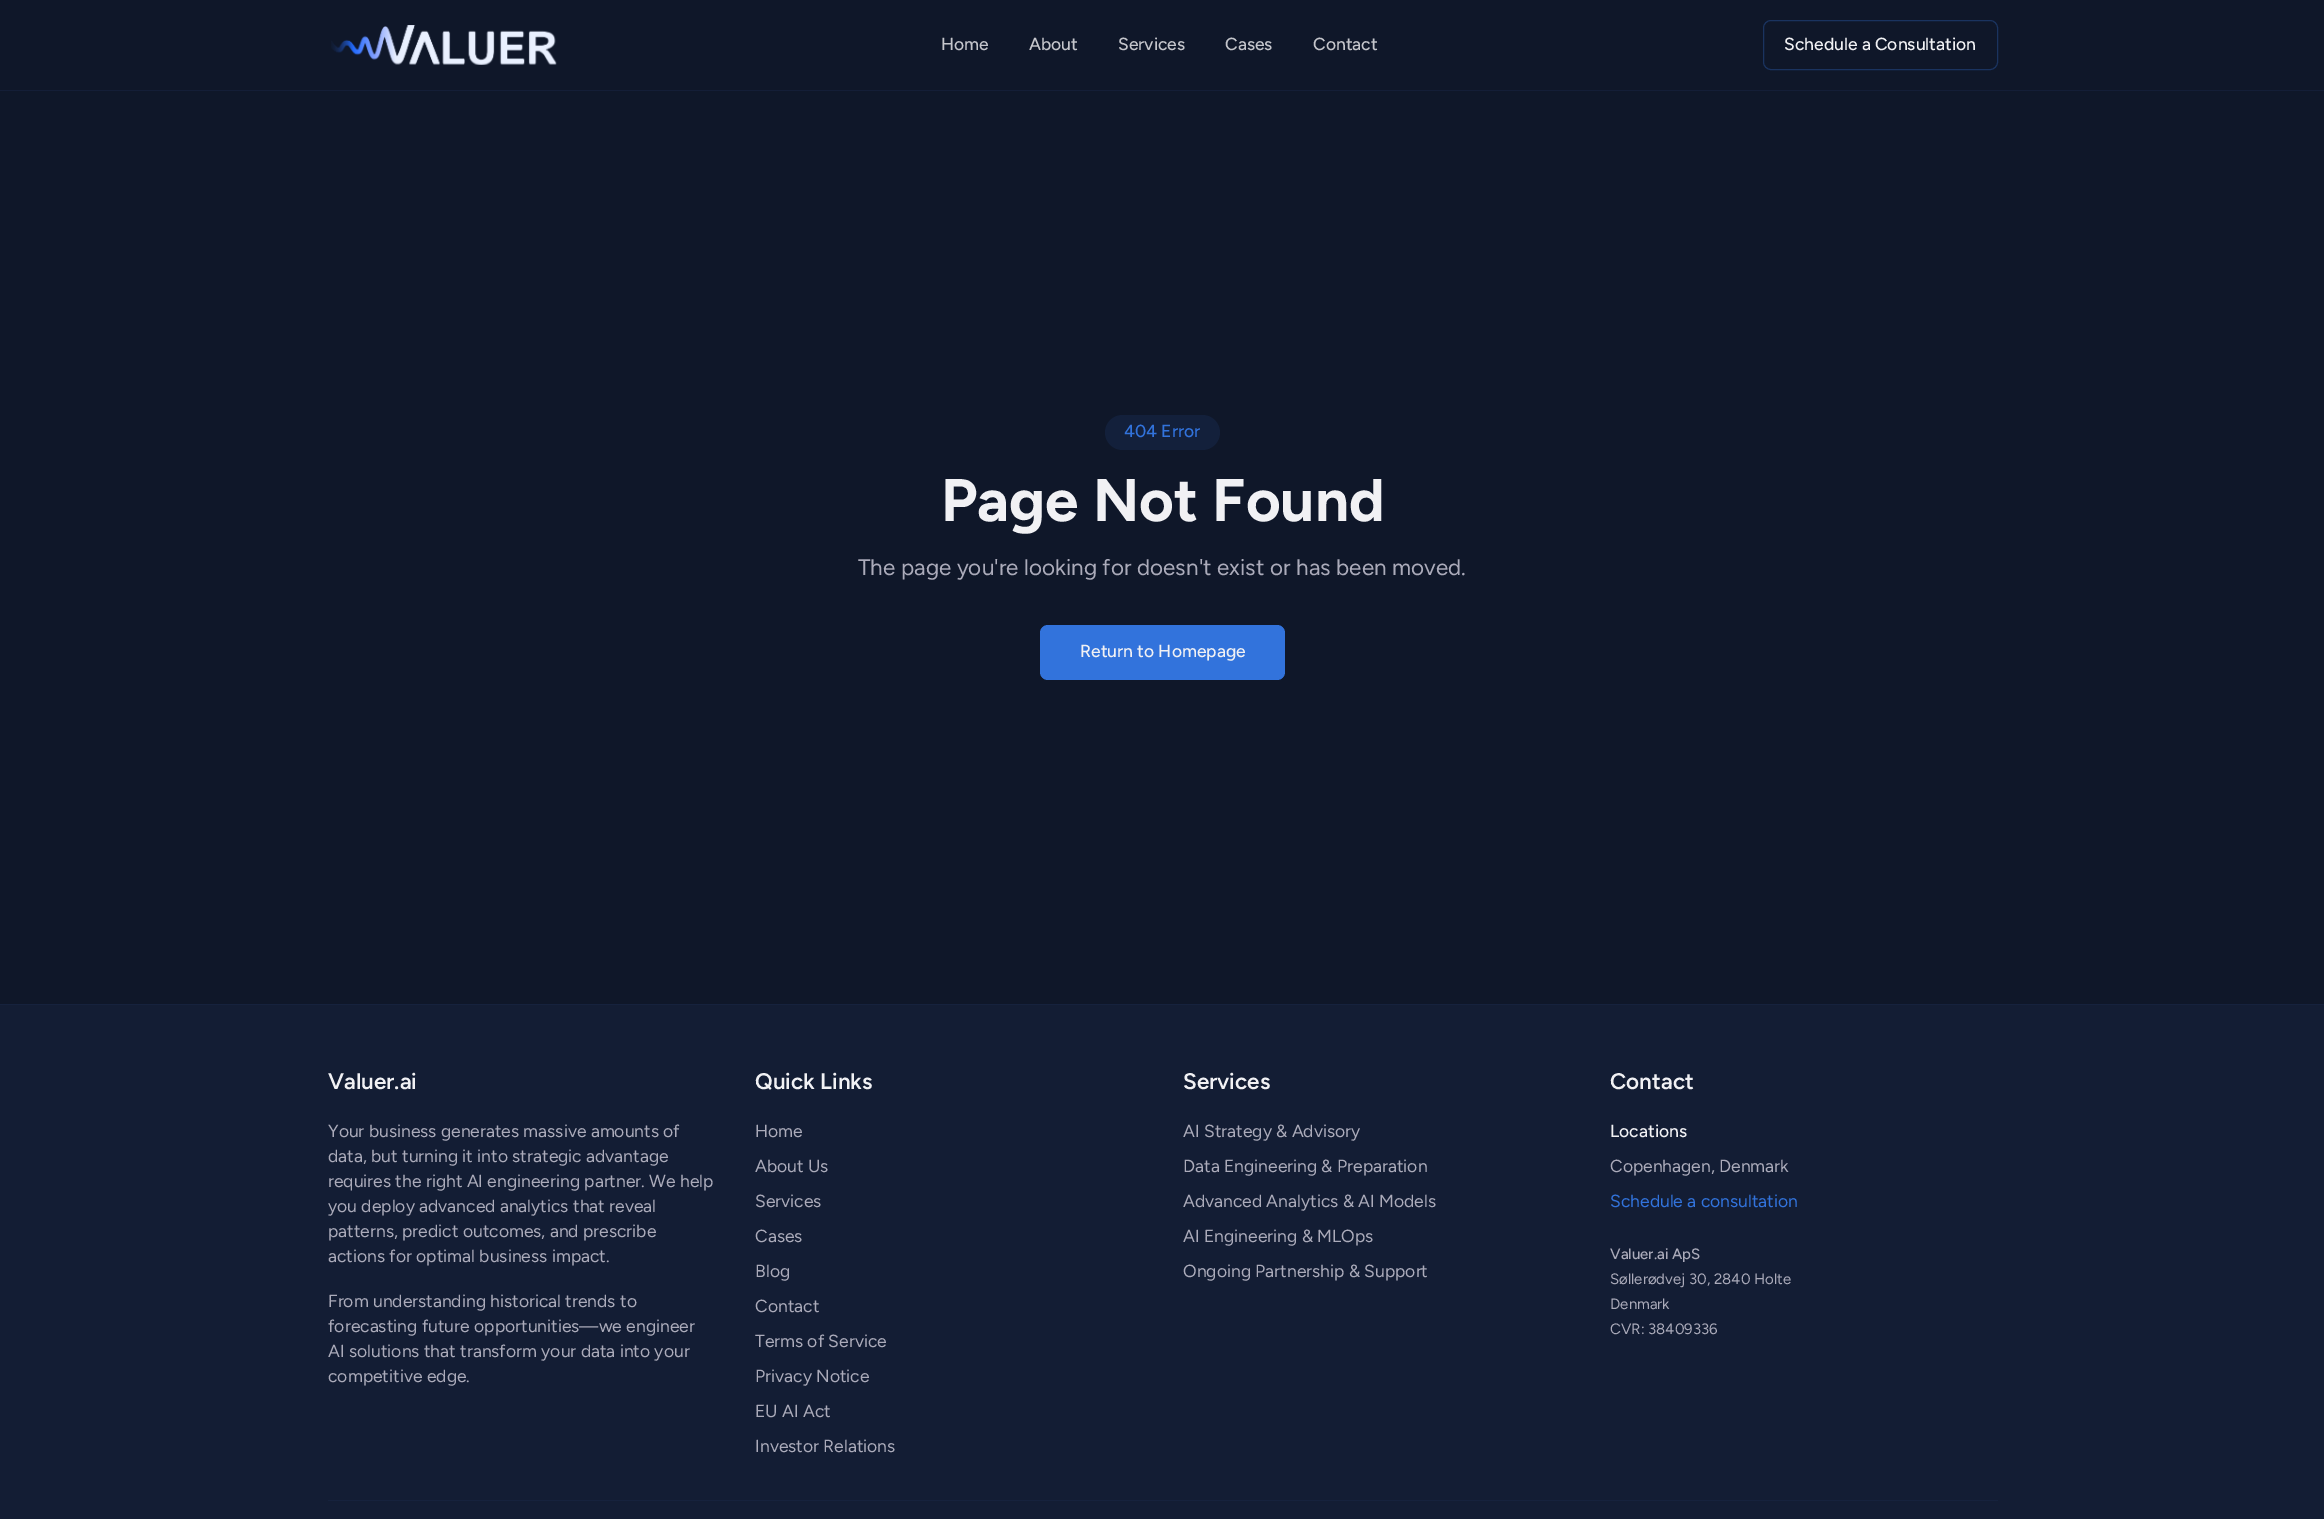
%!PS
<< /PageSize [2324 1519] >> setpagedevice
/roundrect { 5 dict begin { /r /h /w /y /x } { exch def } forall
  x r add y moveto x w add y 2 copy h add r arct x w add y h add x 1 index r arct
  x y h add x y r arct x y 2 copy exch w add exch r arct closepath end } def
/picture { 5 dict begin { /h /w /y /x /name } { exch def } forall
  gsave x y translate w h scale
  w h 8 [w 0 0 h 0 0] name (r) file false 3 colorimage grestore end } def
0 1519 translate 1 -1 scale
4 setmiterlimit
0.059 0.09 0.161 setrgbcolor
0 0 2324 1519 rectfill
0.078 0.118 0.216 setrgbcolor
0 90 2324 1 rectfill
(img1.rgb) 331 25 226 40 picture
/Figtree-Medium [17.5 0 0 -17.5 0 0] selectfont
0.769 0.773 0.796 setrgbcolor
941 50 moveto (Home) show
1029 50 moveto (About) show
1118 50 moveto (Services) show
1225 50 moveto (Cases) show
1313 50 moveto (Contact) show
0.102 0.2 0.373 setrgbcolor
1763.5 20.5 234 49 7.5 roundrect stroke
0.945 0.945 0.957 setrgbcolor
1784 50 moveto (Schedule a Consultation) show
0.075 0.125 0.231 setrgbcolor
1105 415 115 35 17.5 roundrect fill
0.196 0.451 0.863 setrgbcolor
1124 437 moveto (404 Error) show
/Figtree-Bold [60 0 0 -60 0 0] selectfont
0.945 0.945 0.957 setrgbcolor
941 521 moveto (Page Not Found) show
/Figtree-Regular [22.5 0 0 -22.5 0 0] selectfont
0.671 0.671 0.729 setrgbcolor
858 575 moveto (The page you're looking for doesn't exist or has been moved.) show
0.196 0.451 0.863 setrgbcolor
1040 625 245 55 8 roundrect fill
/Figtree-Medium [17.5 0 0 -17.5 0 0] selectfont
0.945 0.945 0.957 setrgbcolor
1080 657 moveto (Return to Homepage) show
0.075 0.114 0.204 setrgbcolor
0 1005 2324 514 rectfill
0.086 0.133 0.239 setrgbcolor
0 1004 2324 1 rectfill
/Figtree-SemiBold [22.5 0 0 -22.5 0 0] selectfont
0.945 0.945 0.957 setrgbcolor
328 1089 moveto (Valuer.ai) show
/Figtree-Regular [17.5 0 0 -17.5 0 0] selectfont
0.671 0.671 0.729 setrgbcolor
328 1137 moveto (Your business generates massive amounts of) show
328 1162 moveto (data, but turning it into strategic advantage) show
328 1187 moveto (requires the right AI engineering partner. We help) show
328 1212 moveto (you deploy advanced analytics that reveal) show
328 1237 moveto (patterns, predict outcomes, and prescribe) show
328 1262 moveto (actions for optimal business impact.) show
328 1307 moveto (From understanding historical trends to) show
328 1332 moveto (forecasting future opportunities—we engineer) show
328 1357 moveto (AI solutions that transform your data into your) show
328 1382 moveto (competitive edge.) show
/Figtree-SemiBold [22.5 0 0 -22.5 0 0] selectfont
0.945 0.945 0.957 setrgbcolor
755 1089 moveto (Quick Links) show
/Figtree-Regular [17.5 0 0 -17.5 0 0] selectfont
0.671 0.671 0.729 setrgbcolor
755 1137 moveto (Home) show
755 1172 moveto (About Us) show
755 1207 moveto (Services) show
755 1242 moveto (Cases) show
755 1277 moveto (Blog) show
755 1312 moveto (Contact) show
755 1347 moveto (Terms of Service) show
755 1382 moveto (Privacy Notice) show
755 1417 moveto (EU AI Act) show
755 1452 moveto (Investor Relations) show
/Figtree-SemiBold [22.5 0 0 -22.5 0 0] selectfont
0.945 0.945 0.957 setrgbcolor
1183 1089 moveto (Services) show
/Figtree-Regular [17.5 0 0 -17.5 0 0] selectfont
0.671 0.671 0.729 setrgbcolor
1183 1137 moveto (AI Strategy & Advisory) show
1183 1172 moveto (Data Engineering & Preparation) show
1183 1207 moveto (Advanced Analytics & AI Models) show
1183 1242 moveto (AI Engineering & MLOps) show
1183 1277 moveto (Ongoing Partnership & Support) show
/Figtree-SemiBold [22.5 0 0 -22.5 0 0] selectfont
0.945 0.945 0.957 setrgbcolor
1610 1089 moveto (Contact) show
/Figtree-Medium [17.5 0 0 -17.5 0 0] selectfont
1610 1137 moveto (Locations) show
/Figtree-Regular [17.5 0 0 -17.5 0 0] selectfont
0.671 0.671 0.729 setrgbcolor
1610 1172 moveto (Copenhagen, Denmark) show
0.196 0.451 0.863 setrgbcolor
1610 1207 moveto (Schedule a consultation) show
/Figtree-Medium [15 0 0 -15 0 0] selectfont
0.671 0.671 0.729 setrgbcolor
1610 1259 moveto (Valuer.ai ApS) show
/Figtree-Regular [15 0 0 -15 0 0] selectfont
1610 1284 moveto (Søllerødvej 30, 2840 Holte) show
1610 1309 moveto (Denmark) show
1610 1334 moveto (CVR: 38409336) show
0.086 0.133 0.239 setrgbcolor
328 1500 1670 1 rectfill
showpage
